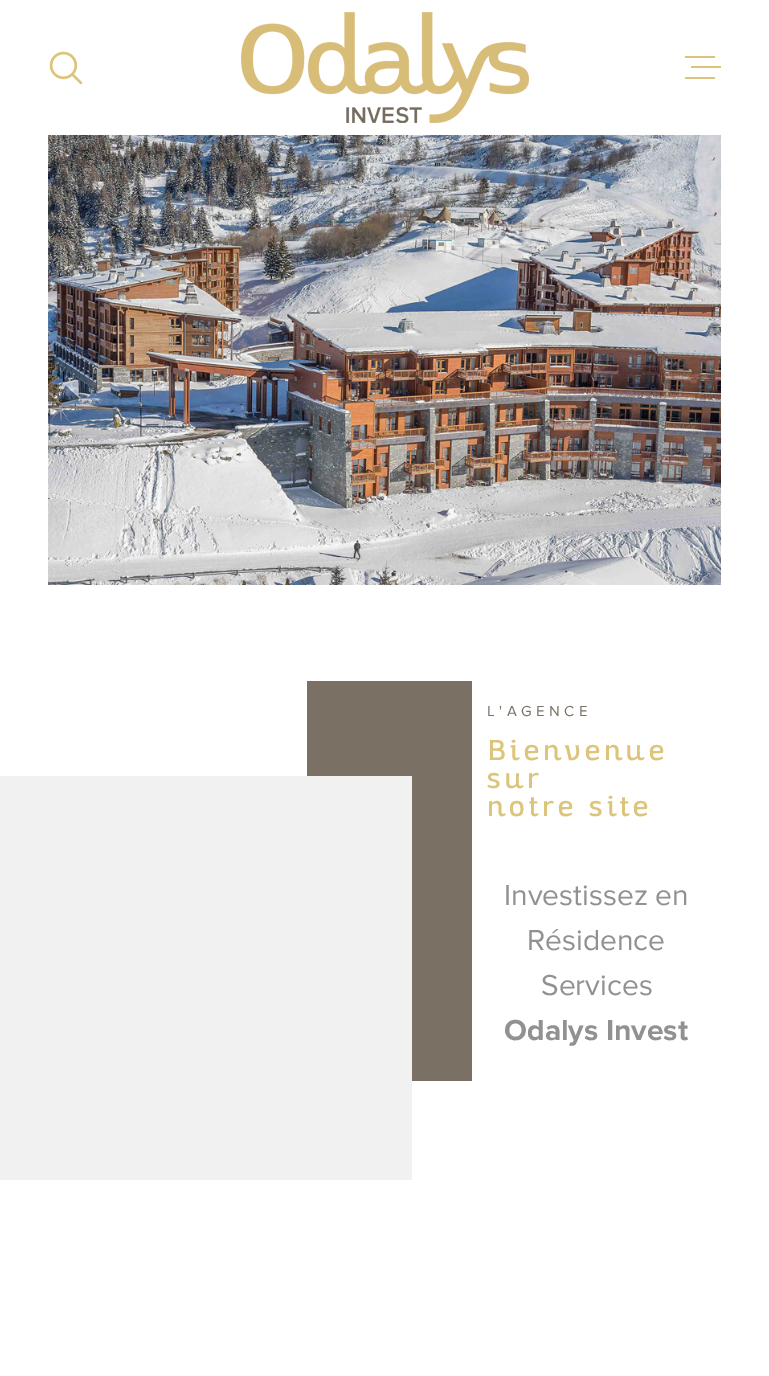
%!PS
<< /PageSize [769 1376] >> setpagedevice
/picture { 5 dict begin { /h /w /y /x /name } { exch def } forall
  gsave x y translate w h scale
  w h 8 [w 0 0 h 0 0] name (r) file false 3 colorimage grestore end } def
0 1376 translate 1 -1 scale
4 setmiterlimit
1 setgray
0 0 769 1376 rectfill
(img1.rgb) 49 51 34 34 picture
(img2.rgb) 241 12 288 111 picture
0.867 0.769 0.482 setrgbcolor
691 66 30 2 rectfill
685 56 30 2 rectfill
685 77 30 2 rectfill
(img3.rgb) 48 135 673 450 picture
0.478 0.439 0.392 setrgbcolor
307 681 165 400 rectfill
0.945 setgray
0 776 412 404 rectfill
/ProximaNova-Regular [15 0 0 -15 0 0] selectfont
0.478 0.439 0.392 setrgbcolor
487 716 moveto 4.5 0 (L'AGENCE) ashow
/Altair-Regular [28 0 0 -28 0 0] selectfont
0.867 0.769 0.482 setrgbcolor
487 760 moveto 4.25 0 (Bienvenue) ashow
487 788 moveto 4.25 0 (sur) ashow
487 816 moveto 4.25 0 (notre site) ashow
/ProximaNova-Regular [30 0 0 -30 0 0] selectfont
0.569 setgray
504 905 moveto (Investissez en) show
527 950 moveto (Résidence) show
541 995 moveto (Services) show
/ProximaNova-Bold [30 0 0 -30 0 0] selectfont
504 1040 moveto (Odalys Invest) show
showpage
